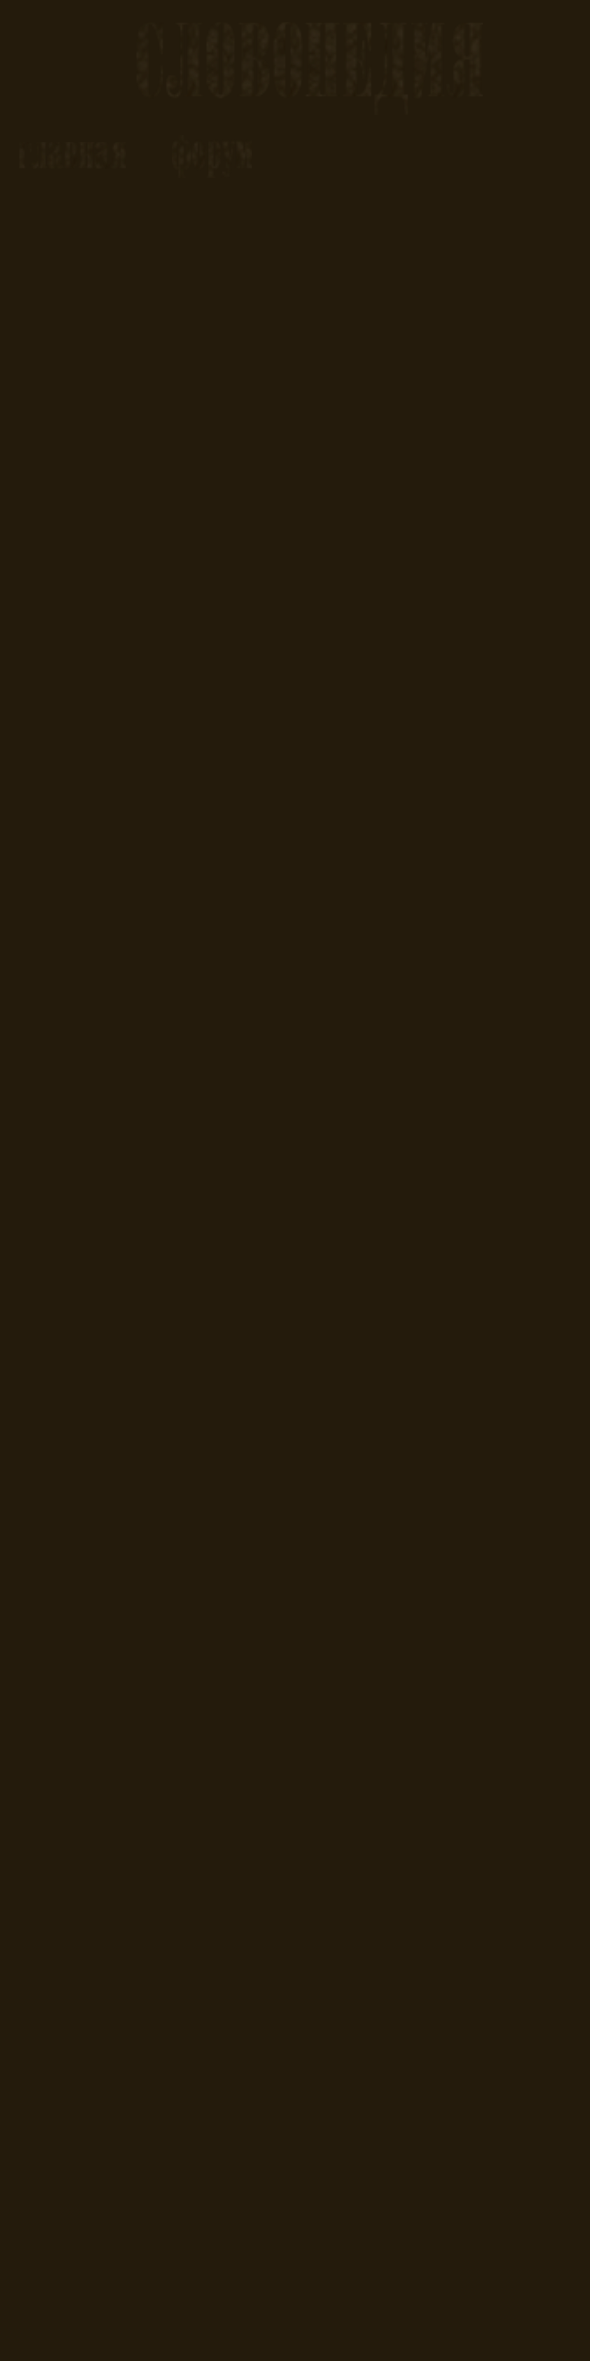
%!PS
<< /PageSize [590 2361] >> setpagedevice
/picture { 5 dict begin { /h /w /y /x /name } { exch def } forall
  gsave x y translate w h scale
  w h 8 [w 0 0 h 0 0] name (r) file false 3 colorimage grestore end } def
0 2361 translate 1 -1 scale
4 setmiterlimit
0.141 0.106 0.047 setrgbcolor
0 0 590 2361 rectfill
(img1.rgb) 136 22 347 93 picture
(img2.rgb) 19 142 107 27 picture
(img3.rgb) 172 135 80 43 picture
showpage
